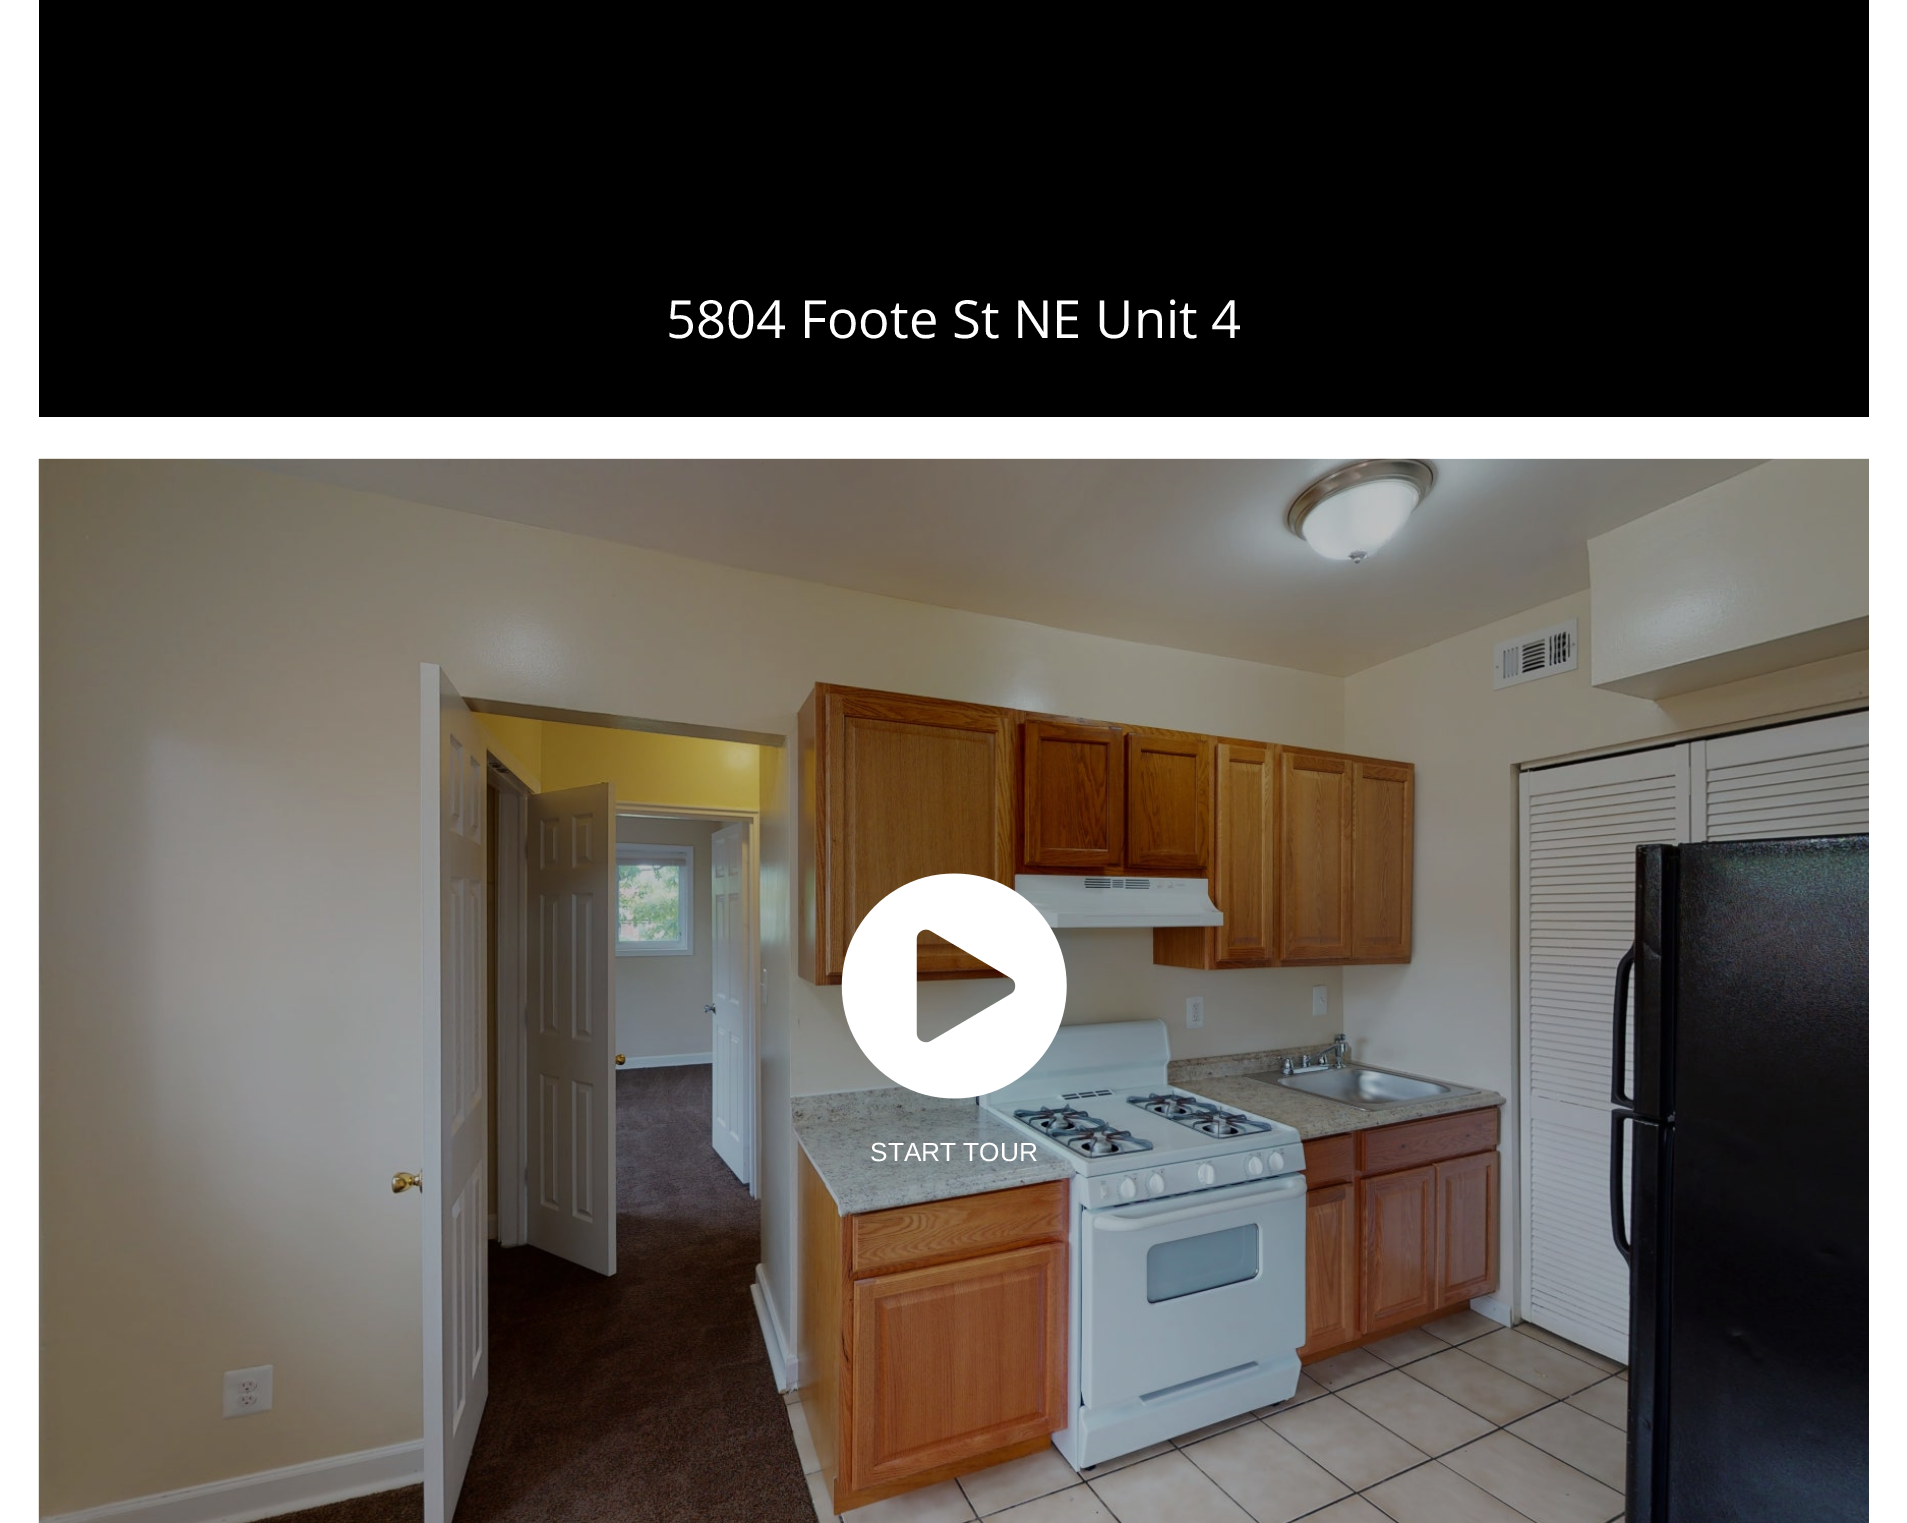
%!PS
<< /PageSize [1907 1523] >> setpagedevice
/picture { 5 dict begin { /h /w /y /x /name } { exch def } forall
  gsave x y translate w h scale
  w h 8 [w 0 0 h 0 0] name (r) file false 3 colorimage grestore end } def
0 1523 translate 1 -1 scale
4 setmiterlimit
1 setgray
0 0 1907 1523 rectfill
0 setgray
39 0 1830 417 rectfill
/OpenSans-Regular [52.5 0 0 -52.5 0 0] selectfont
1 setgray
666 338 moveto (5804 Foote St NE Unit 4) show
(img1.rgb) 38 458 1831 1065 picture
(img2.rgb) 841 873 226 226 picture
/LiberationSans-Regular [26.25 0 0 -26.25 0 0] selectfont
870 1161 moveto (START TOUR) show
showpage
